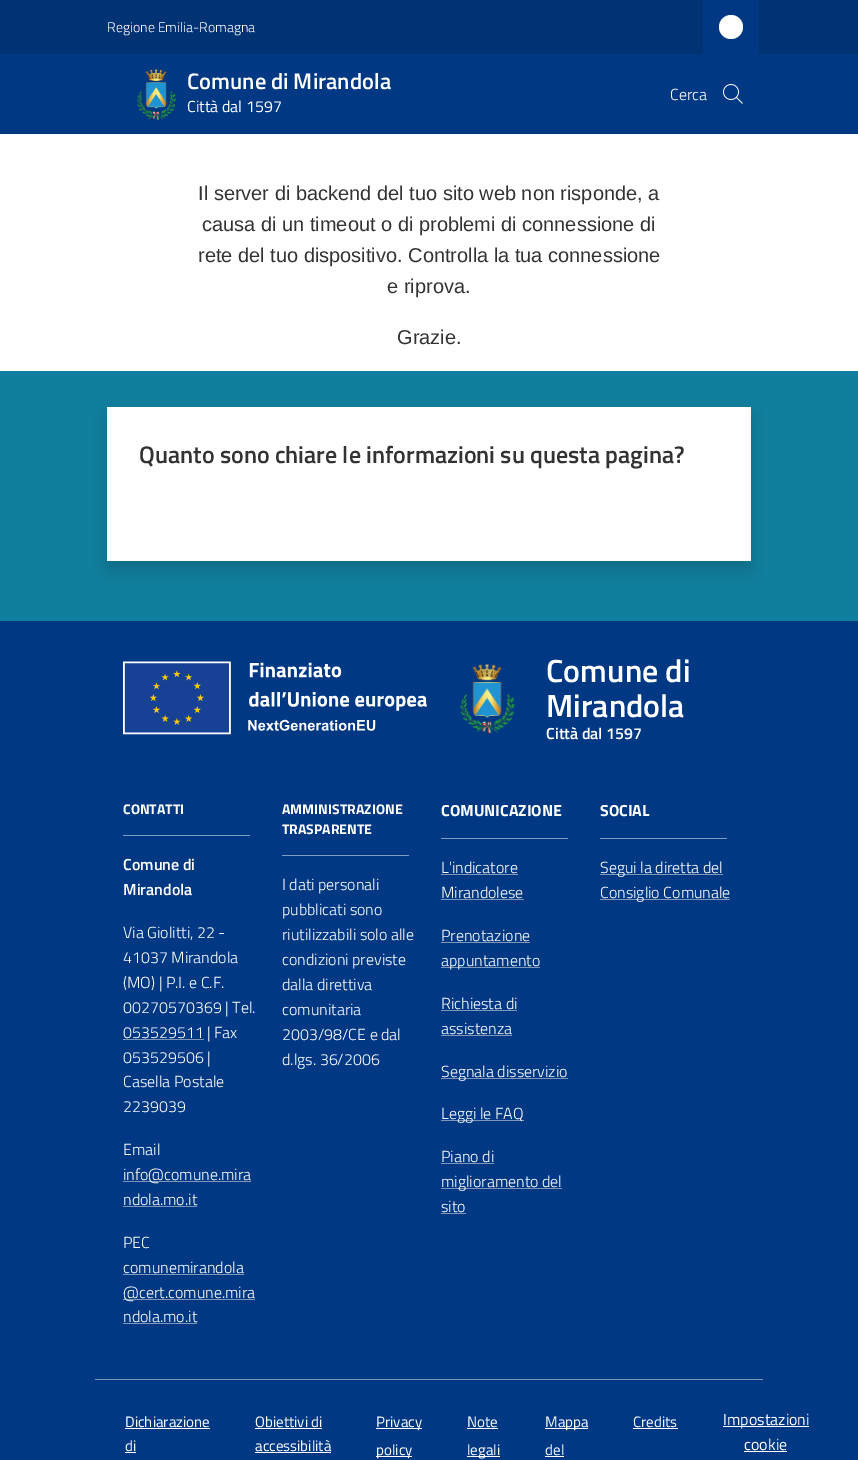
%!PS
<< /PageSize [858 1460] /PageUsesTransparency true >> setpagedevice
/alpha { dup .setfillconstantalpha .setstrokeconstantalpha } def
/roundrect { 5 dict begin { /r /h /w /y /x } { exch def } forall
  x r add y moveto x w add y 2 copy h add r arct x w add y h add x 1 index r arct
  x y h add x y r arct x y 2 copy exch w add exch r arct closepath end } def
/shadow { 12 dict begin { /a /b /q /h /w /y /x } { exch def } forall gsave /was 0 def
  9 -2 -9 { dup b mul 4 div /e exch def 1 sub .425 mul 2.718 exch exp 1 add a .99 .min exch div /now exch def
    1 1 now sub 1 was sub div sub alpha /was now def
    w h .min e 2 mul add 0 gt { x e sub y e sub w e 2 mul add h e 2 mul add
      q e add b .6 mul add w h .min 2 div e add .min 0 .max roundrect fill } if } for grestore end } def
/picture { 5 dict begin { /h /w /y /x /name } { exch def } forall
  gsave x y translate w h scale
  w h 8 [w 0 0 h 0 0] name (r) file false 3 colorimage grestore end } def
0 .pushpdf14devicefilter
0 1460 translate 1 -1 scale
4 setmiterlimit
1 setgray
0 0 858 1460 rectfill
0 0.196 0.455 setrgbcolor
0 0 858 54 rectfill
/TitilliumWeb-Light [14 0 0 -14 0 0] selectfont
1 setgray
107 32 moveto (Regione Emilia-Romagna) show
0 0.22 0.514 setrgbcolor
703 0 56 54 rectfill
1 setgray
newpath 731 27 12 0 360 arc closepath fill
0 0.22 0.514 setrgbcolor
0 54 858 80 rectfill
(img1.rgb) 137 69 39 52 picture
/TitilliumWeb-SemiBold [22.5 0 0 -22.5 0 0] selectfont
1 setgray
187 89 moveto (Comune di Mirandola) show
/TitilliumWeb-Regular [16 0 0 -16 0 0] selectfont
187 112 moveto (Città dal 1597) show
/TitilliumWeb-Light [16 0 0 -16 0 0] selectfont
670 100 moveto (Cerca) show
(img2.rgb) 723 84 20 20 picture
/LiberationSans-Regular [20 0 0 -20 0 0] selectfont
0.2 setgray
198 200 moveto (Il server di backend del tuo sito web non risponde, a) show
202 231 moveto (causa di un timeout o di problemi di connessione di) show
198 262 moveto (rete del tuo dispositivo. Controlla la tua connessione) show
387 293 moveto (e riprova.) show
397 344 moveto (Grazie.) show
0.063 0.494 0.62 setrgbcolor
0 371 858 250 rectfill
0 setgray
107 416 644 154 0 9 0.15 shadow
1 setgray
107 407 644 154 rectfill
/TitilliumWeb-SemiBold [24 0 0 -24 0 0] selectfont
0.2 setgray
139 463 moveto (Quanto sono chiare le informazioni su questa pagina?) show
0 0.22 0.514 setrgbcolor
0 621 858 839 rectfill
(img3.rgb) 123 661 304 74 picture
(img4.rgb) 460 663 56 72 picture
/TitilliumWeb-SemiBold [32 0 0 -32 0 0] selectfont
1 setgray
546 682 moveto (Comune di) show
546 717 moveto (Mirandola) show
/TitilliumWeb-SemiBold [16 0 0 -16 0 0] selectfont
546 739 moveto (Città dal 1597) show
0.502 0.612 0.757 setrgbcolor
123 835 127 1 rectfill
/TitilliumWeb-Bold [14 0 0 -14 0 0] selectfont
1 setgray
123 814 moveto (CONTATTI) show
/TitilliumWeb-SemiBold [16 0 0 -16 0 0] selectfont
123 870 moveto (Comune di) show
123 895 moveto (Mirandola) show
/TitilliumWeb-Light [16 0 0 -16 0 0] selectfont
123 938 moveto (Via Giolitti, 22 -) show
123 963 moveto (41037 Mirandola) show
123 988 moveto (\(MO\) | P.I. e C.F.) show
123 1013 moveto (00270570369 | Tel.) show
123 1038 moveto (053529511) show
0.494 0.592 0.722 setrgbcolor
123 1039 81 1 rectfill
1 setgray
207 1038 moveto (| Fax) show
123 1063 moveto (053529506 |) show
123 1087 moveto (Casella Postale) show
123 1112 moveto (2239039) show
123 1155 moveto (Email) show
0.494 0.592 0.722 setrgbcolor
123 1181 128 1 rectfill
1 setgray
123 1180 moveto (info@comune.mira) show
123 1205 moveto (ndola.mo.it) show
0.494 0.592 0.722 setrgbcolor
123 1206 74 1 rectfill
1 setgray
123 1248 moveto (PEC) show
123 1273 moveto (comunemirandola) show
0.494 0.592 0.722 setrgbcolor
123 1274 121 1 rectfill
123 1299 132 1 rectfill
1 setgray
123 1298 moveto (@cert.comune.mira) show
123 1322 moveto (ndola.mo.it) show
0.494 0.592 0.722 setrgbcolor
123 1323 74 1 rectfill
0.502 0.612 0.757 setrgbcolor
282 855 127 1 rectfill
/TitilliumWeb-Bold [14 0 0 -14 0 0] selectfont
1 setgray
282 814 moveto (AMMINISTRAZIONE) show
282 834 moveto (TRASPARENTE) show
/TitilliumWeb-Light [16 0 0 -16 0 0] selectfont
282 890 moveto (I dati personali) show
282 915 moveto (pubblicati sono) show
282 940 moveto (riutilizzabili solo alle) show
282 965 moveto (condizioni previste) show
282 990 moveto (dalla direttiva) show
282 1015 moveto (comunitaria) show
282 1040 moveto (2003/98/CE e dal) show
282 1065 moveto (d.lgs. 36/2006) show
0.502 0.612 0.757 setrgbcolor
441 838 127 1 rectfill
/TitilliumWeb-Bold [16 0 0 -16 0 0] selectfont
1 setgray
441 816 moveto (COMUNICAZIONE) show
/TitilliumWeb-Light [16 0 0 -16 0 0] selectfont
441 873 moveto (L'indicatore) show
0.494 0.592 0.722 setrgbcolor
441 874 77 1 rectfill
1 setgray
441 898 moveto (Mirandolese) show
0.494 0.592 0.722 setrgbcolor
441 899 83 1 rectfill
1 setgray
441 941 moveto (Prenotazione) show
0.494 0.592 0.722 setrgbcolor
441 942 89 1 rectfill
441 967 99 1 rectfill
1 setgray
441 966 moveto (appuntamento) show
441 1009 moveto (Richiesta di) show
0.494 0.592 0.722 setrgbcolor
441 1010 76 1 rectfill
1 setgray
441 1034 moveto (assistenza) show
0.494 0.592 0.722 setrgbcolor
441 1035 71 1 rectfill
441 1078 127 1 rectfill
1 setgray
441 1077 moveto (Segnala disservizio) show
0.494 0.592 0.722 setrgbcolor
441 1120 83 1 rectfill
1 setgray
441 1119 moveto (Leggi le FAQ) show
441 1162 moveto (Piano di) show
0.494 0.592 0.722 setrgbcolor
441 1163 53 1 rectfill
441 1188 121 1 rectfill
1 setgray
441 1187 moveto (miglioramento del) show
441 1212 moveto (sito) show
0.494 0.592 0.722 setrgbcolor
441 1213 25 1 rectfill
0.502 0.612 0.757 setrgbcolor
600 838 127 1 rectfill
/TitilliumWeb-Bold [16 0 0 -16 0 0] selectfont
1 setgray
600 816 moveto (SOCIAL) show
0.494 0.592 0.722 setrgbcolor
600 874 123 1 rectfill
/TitilliumWeb-Light [16 0 0 -16 0 0] selectfont
1 setgray
600 873 moveto (Segui la diretta del) show
0.494 0.592 0.722 setrgbcolor
600 899 130 1 rectfill
1 setgray
600 898 moveto (Consiglio Comunale) show
0.494 0.592 0.722 setrgbcolor
95 1379 668 1 rectfill
/TitilliumWeb-Regular [15 0 0 -15 0 0] selectfont
1 setgray
125 1427 moveto (Dichiarazione) show
125 1428 85 1 rectfill
125 1451 moveto (di) show
125 1452 11 1 rectfill
255 1427 moveto (Obiettivi di) show
255 1428 67 1 rectfill
255 1451 moveto (accessibilità) show
255 1452 76 1 rectfill
376 1428 46 1 rectfill
376 1427 moveto (Privacy) show
376 1456 36 1 rectfill
376 1455 moveto (policy) show
467 1427 moveto (Note) show
467 1428 31 1 rectfill
467 1456 33 1 rectfill
467 1455 moveto (legali) show
545 1428 43 1 rectfill
545 1427 moveto (Mappa) show
545 1455 moveto (del) show
545 1456 19 1 rectfill
633 1427 moveto (Credits) show
633 1428 45 1 rectfill
723 1426 86 1 rectfill
/TitilliumWeb-Regular [16 0 0 -16 0 0] selectfont
723 1425 moveto (Impostazioni) show
744 1450 moveto (cookie) show
744 1451 43 1 rectfill
.poppdf14devicefilter showpage
